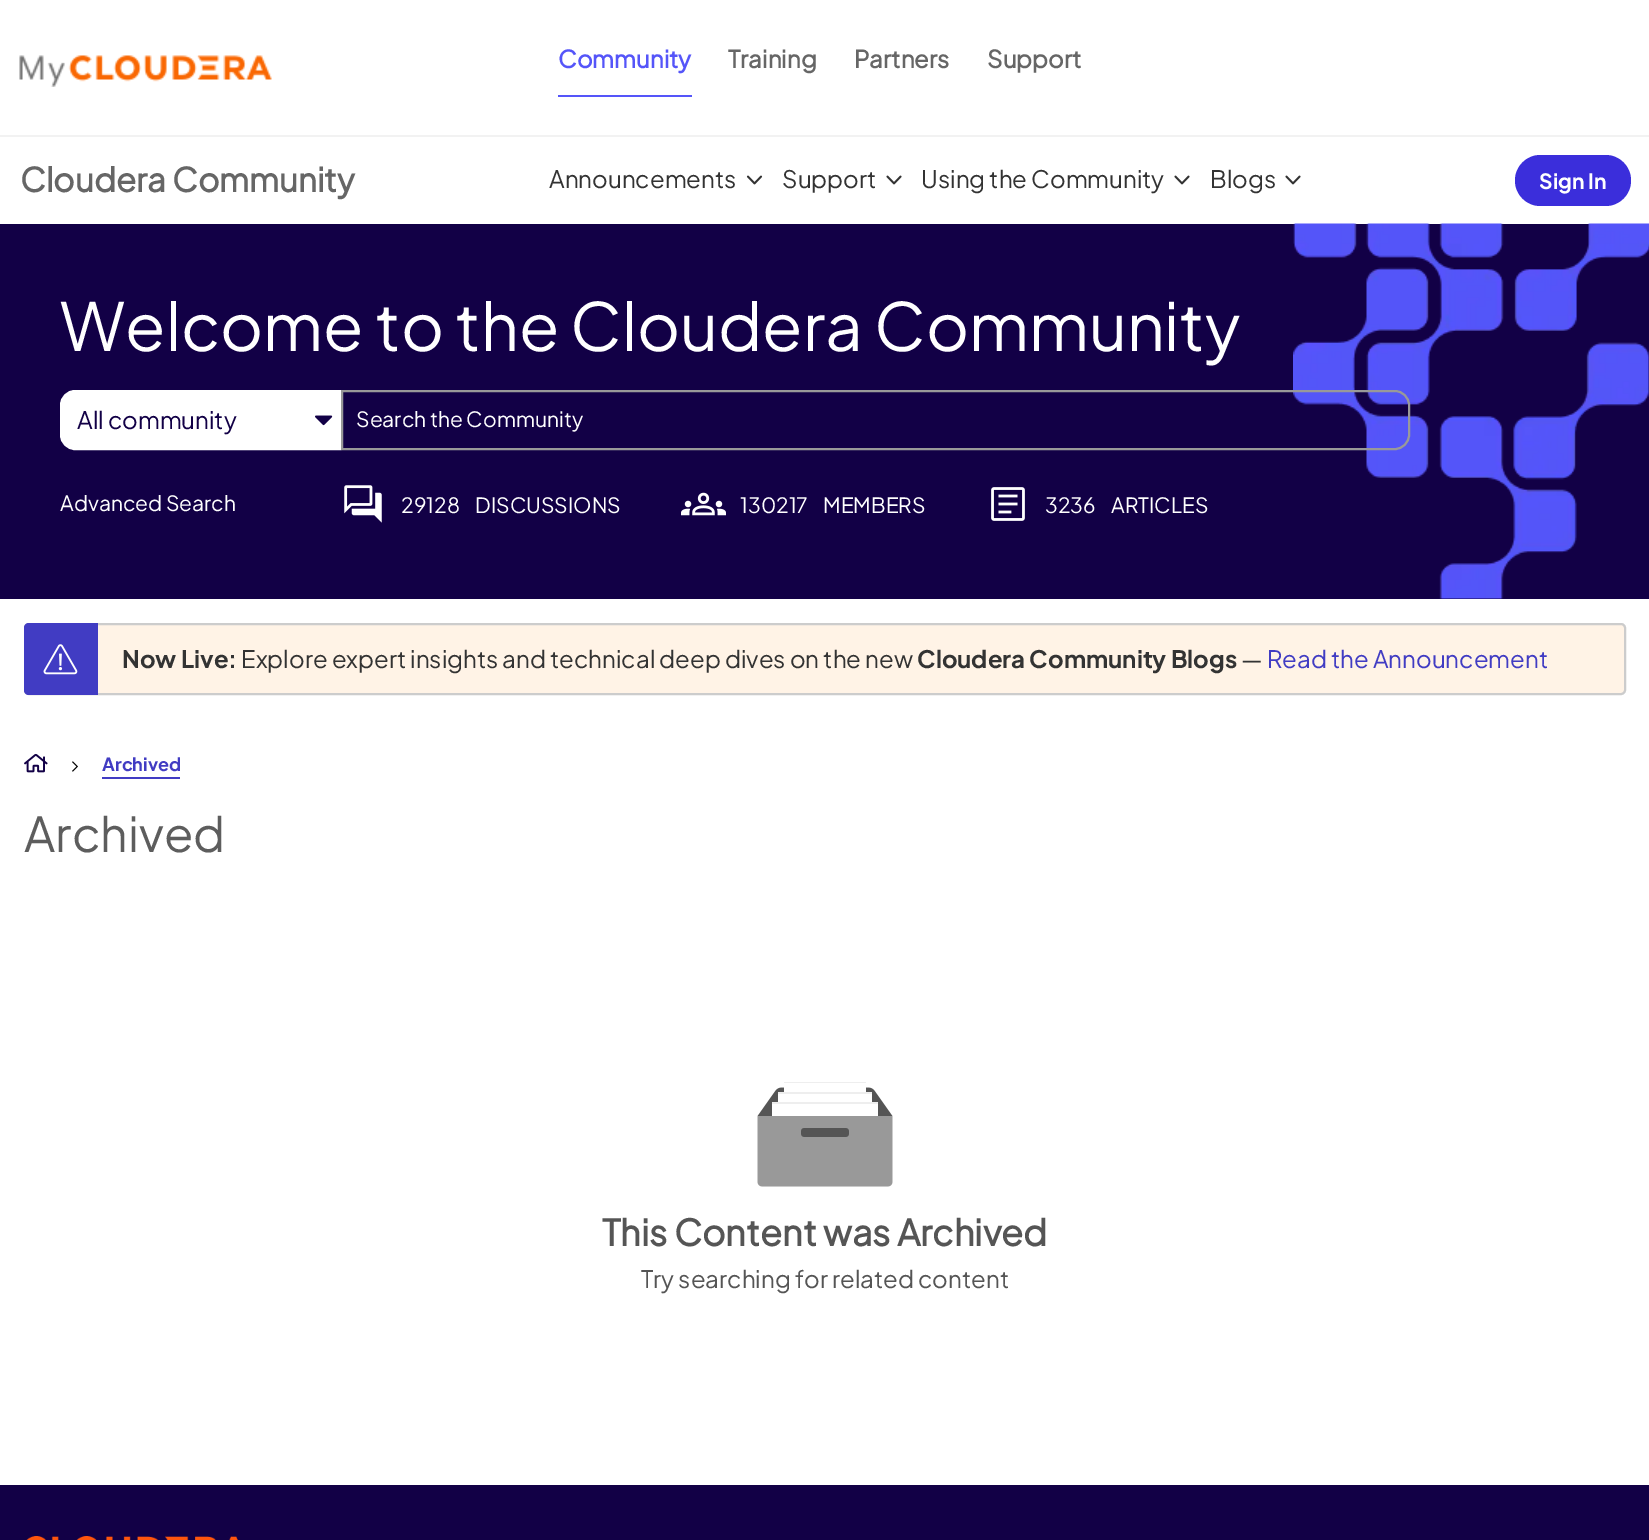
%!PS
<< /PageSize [1649 1540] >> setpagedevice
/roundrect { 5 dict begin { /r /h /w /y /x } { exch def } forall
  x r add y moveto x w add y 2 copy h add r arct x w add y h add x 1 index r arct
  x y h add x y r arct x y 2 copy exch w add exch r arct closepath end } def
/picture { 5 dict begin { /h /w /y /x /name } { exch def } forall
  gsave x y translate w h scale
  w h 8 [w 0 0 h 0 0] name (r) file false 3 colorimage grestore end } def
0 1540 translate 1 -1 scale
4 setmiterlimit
1 setgray
0 0 1649 1540 rectfill
0.949 setgray
0 135 1649 2 rectfill
(img1.rgb) 19 55 253 32 picture
0.333 0.333 0.976 setrgbcolor
558 95 134 2 rectfill
/PlusJakartaSans-Bold [24 0 0 -24 0 0] selectfont
558 68 moveto (Community) show
0.4 setgray
728 68 moveto (Training) show
854 68 moveto (Partners) show
987 68 moveto (Support) show
/PlusJakartaSans-Bold [33 0 0 -33 0 0] selectfont
20 192 moveto (Cloudera Community) show
/PlusJakartaSans-Regular [24 0 0 -24 0 0] selectfont
0.2 setgray
549 188 moveto (Announcements) show
(img2.rgb) 746 175 17 10 picture
782 188 moveto (Support) show
(img3.rgb) 886 175 16 10 picture
921 188 moveto (Using the Community) show
(img3.rgb) 1174 175 16 10 picture
1210 188 moveto (Blogs) show
(img3.rgb) 1285 175 16 10 picture
0.231 0.18 0.859 setrgbcolor
1515 155 116 51 25.5 roundrect fill
/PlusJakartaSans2-Bold [21 0 0 -21 0 0] selectfont
1 setgray
1539 189 moveto (Sign In) show
0.071 0 0.275 setrgbcolor
0 224 1649 375 rectfill
(img4.rgb) 1293 223 356 376 picture
/PlusJakartaSans-Regular [66 0 0 -66 0 0] selectfont
1 setgray
60 351 moveto (Welcome to the Cloudera Community) show
newpath 75 391 moveto 340 391 lineto 340 449 lineto 75 449 lineto 67.5 449 61 442.5 61 435 curveto 61 405 lineto 61 397.5 67.5 391 75 391 curveto closepath gsave fill grestore
2 setlinewidth
stroke
/PlusJakartaSans-Regular [24 0 0 -24 0 0] selectfont
0.071 0 0.275 setrgbcolor
77 429 moveto (All community) show
(img5.rgb) 315 415 18 11 picture
0.6 setgray
newpath 342 391 moveto 1395 391 lineto 1402.5 391 1409 397.5 1409 405 curveto 1409 435 lineto 1409 442.5 1402.5 449 1395 449 curveto 342 449 lineto closepath stroke
/PlusJakartaSans-Regular [21 0 0 -21 0 0] selectfont
1 setgray
356 427 moveto (Search the Community) show
60 511 moveto (Advanced Search) show
(img6.rgb) 344 485 38 38 picture
401 513 moveto (29128) show
475 513 moveto (DISCUSSIONS) show
(img7.rgb) 681 492 45 24 picture
740 513 moveto (130217) show
823 513 moveto (MEMBERS) show
(img8.rgb) 991 487 34 34 picture
1045 513 moveto (3236) show
1111 513 moveto (ARTICLES) show
1 0.953 0.902 setrgbcolor
25 624 1600 70 4 roundrect gsave fill grestore
0.8 setgray
stroke
0.255 0.235 0.765 setrgbcolor
newpath 29 623 moveto 98 623 lineto 98 695 lineto 29 695 lineto 26 695 24 693 24 690 curveto 24 628 lineto 24 625 26 623 29 623 curveto closepath fill
(img9.rgb) 43 644 35 31 picture
/PlusJakartaSans2-Bold [24 0 0 -24 0 0] selectfont
0.2 setgray
122 668 moveto (Now Live:) show
/PlusJakartaSans-Regular [24 0 0 -24 0 0] selectfont
241 668 moveto (Explore expert insights and technical deep dives on the new) show
/PlusJakartaSans2-Bold [24 0 0 -24 0 0] selectfont
917 668 moveto (Cloudera Community Blogs) show
/PlusJakartaSans-Regular [24 0 0 -24 0 0] selectfont
1241 668 moveto (—) show
0.255 0.235 0.765 setrgbcolor
1267 668 moveto (Read the Announcement) show
(img10.rgb) 24 753 24 20 picture
(img11.rgb) 72 761 6 11 picture
/PlusJakartaSans2-Bold [18 0 0 -18 0 0] selectfont
102 771 moveto (Archived) show
102 777 78 2 rectfill
/PlusJakartaSans-Regular [48 0 0 -48 0 0] selectfont
0.365 setgray
24 852 moveto (Archived) show
(img12.rgb) 757 1082 136 105 picture
/PlusJakartaSans-Bold [36 0 0 -36 0 0] selectfont
0.333 setgray
602 1246 moveto (This Content was Archived) show
/PlusJakartaSans-Regular [24 0 0 -24 0 0] selectfont
641 1288 moveto (Try searching for related content) show
0.071 0 0.275 setrgbcolor
0 1485 1649 55 rectfill
(img13.rgb) 26 1536 212 4 picture
showpage
